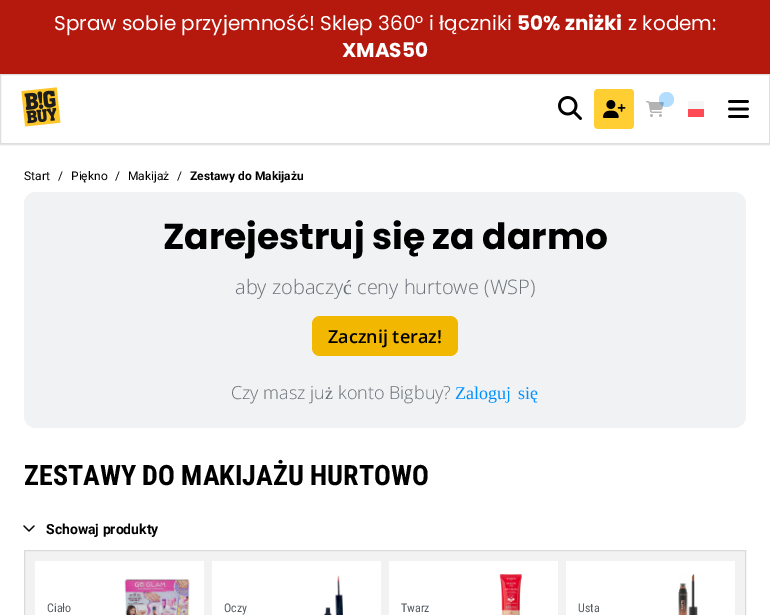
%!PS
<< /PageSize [770 615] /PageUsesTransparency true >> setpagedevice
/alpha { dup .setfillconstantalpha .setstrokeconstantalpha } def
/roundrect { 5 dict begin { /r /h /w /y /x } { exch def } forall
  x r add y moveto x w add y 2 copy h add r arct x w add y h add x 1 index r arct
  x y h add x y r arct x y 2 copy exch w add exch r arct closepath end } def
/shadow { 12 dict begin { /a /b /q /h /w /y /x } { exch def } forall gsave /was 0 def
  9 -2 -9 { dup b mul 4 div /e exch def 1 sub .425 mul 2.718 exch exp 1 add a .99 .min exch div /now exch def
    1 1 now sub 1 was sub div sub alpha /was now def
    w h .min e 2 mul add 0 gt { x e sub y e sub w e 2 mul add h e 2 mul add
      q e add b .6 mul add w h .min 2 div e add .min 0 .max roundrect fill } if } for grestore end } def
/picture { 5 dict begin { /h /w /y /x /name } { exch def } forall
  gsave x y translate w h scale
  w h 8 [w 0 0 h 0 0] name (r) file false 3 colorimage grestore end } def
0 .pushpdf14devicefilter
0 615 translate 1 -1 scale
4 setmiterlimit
1 setgray
0 0 770 615 rectfill
0.71 0.094 0.051 setrgbcolor
0 0 770 74 rectfill
/Poppins-Regular [20 0 0 -20 0 0] selectfont
1 setgray
54 30 moveto (Spraw sobie przyjemność! Sklep 360° i łączniki) show
/Poppins-Bold [20 0 0 -20 0 0] selectfont
517 30 moveto (50% zniżki) show
/Poppins-Regular [20 0 0 -20 0 0] selectfont
628 30 moveto (z kodem:) show
/Poppins-Bold [20 0 0 -20 0 0] selectfont
342 57 moveto (XMAS50) show
gsave
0 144 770 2 rectclip
0.133 0.141 0.149 setrgbcolor
0 75 770 70 0 1 0.15 shadow
grestore
0.871 setgray
0.5 74.5 769 69 rectstroke
(img1.rgb) 21 87 40 40 picture
(img2.rgb) 558 96 24 24 picture
1 0.808 0.2 setrgbcolor
594 89 40 40 4 roundrect fill
(img3.rgb) 603 100 23 18 picture
(img4.rgb) 646 101 18 16 picture
0.3 alpha
0 0.565 1 setrgbcolor
newpath 666.5 99.5 7.5 0 360 arc closepath fill
1 alpha
1 0.294 0.333 setrgbcolor
688 109 16 8 rectfill
0.961 setgray
688 101 16 8 rectfill
(img5.rgb) 728 100 21 18 picture
/Roboto-Regular [12 0 0 -12 0 0] selectfont
0 setgray
24 180 moveto (Start) show
58 180 moveto (/) show
71 180 moveto (Piękno) show
115 180 moveto (/) show
128 180 moveto (Makijaż) show
177 180 moveto (/) show
/Roboto-Bold [12 0 0 -12 0 0] selectfont
190 180 moveto (Zestawy do Makijażu) show
0.945 0.949 0.953 setrgbcolor
24 192 722 236 12 roundrect fill
/Poppins-Bold [36 0 0 -36 0 0] selectfont
0 setgray
163 249 moveto (Zarejestruj się za darmo) show
/OpenSans-Light [20 0 0 -20 0 0] selectfont
0.412 0.439 0.467 setrgbcolor
235 294 moveto (aby zobaczy) show
/LiberationSerif-Regular [20 0 0 -20 0 0] selectfont
343 294 moveto (ć) show
/OpenSans-Light [20 0 0 -20 0 0] selectfont
357 294 moveto (ceny hurtowe \(WSP\)) show
0.949 0.722 0.004 setrgbcolor
312 316 146 40 8 roundrect fill
/OpenSans-SemiBold [18 0 0 -18 0 0] selectfont
0 setgray
328 343 moveto (Zacznij teraz!) show
/OpenSans-Light [18 0 0 -18 0 0] selectfont
0.412 0.439 0.467 setrgbcolor
231 399 moveto (Czy masz ju) show
/LiberationSerif-Regular [18 0 0 -18 0 0] selectfont
325 399 moveto (ż) show
/OpenSans-Light [18 0 0 -18 0 0] selectfont
338 399 moveto (konto Bigbuy?) show
/LiberationSerif-Regular [18 0 0 -18 0 0] selectfont
0 0.565 1 setrgbcolor
455 399 moveto 3 0 32 (Zaloguj się) widthshow
/RobotoCondensed-Bold [28 0 0 -28 0 0] selectfont
0 setgray
24 485 moveto (ZESTAWY DO MAKIJAŻU HURTOWO) show
(img6.rgb) 23 525 12 7 picture
/Roboto-Bold [14 0 0 -14 0 0] selectfont
46 534 moveto (Schowaj produkty) show
0.949 setgray
newpath 24.5 550.5 moveto 745.5 550.5 lineto 745.5 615.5 lineto 24.5 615.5 lineto closepath gsave fill grestore
0.855 setgray
stroke
1 setgray
35 561 169 54 rectfill
/RobotoCondensed-Regular [12 0 0 -12 0 0] selectfont
0.337 0.365 0.384 setrgbcolor
47 612 moveto (Ciało) show
(img7.rgb) 124 578 66 37 picture
1 setgray
212 561 169 54 rectfill
0.337 0.365 0.384 setrgbcolor
224 612 moveto (Oczy) show
(img8.rgb) 324 575 19 40 picture
1 setgray
389 561 169 54 rectfill
0.337 0.365 0.384 setrgbcolor
401 612 moveto (Twarz) show
(img9.rgb) 499 574 23 41 picture
1 setgray
566 561 169 54 rectfill
0.337 0.365 0.384 setrgbcolor
578 612 moveto (Usta) show
(img10.rgb) 678 574 20 41 picture
.poppdf14devicefilter showpage
